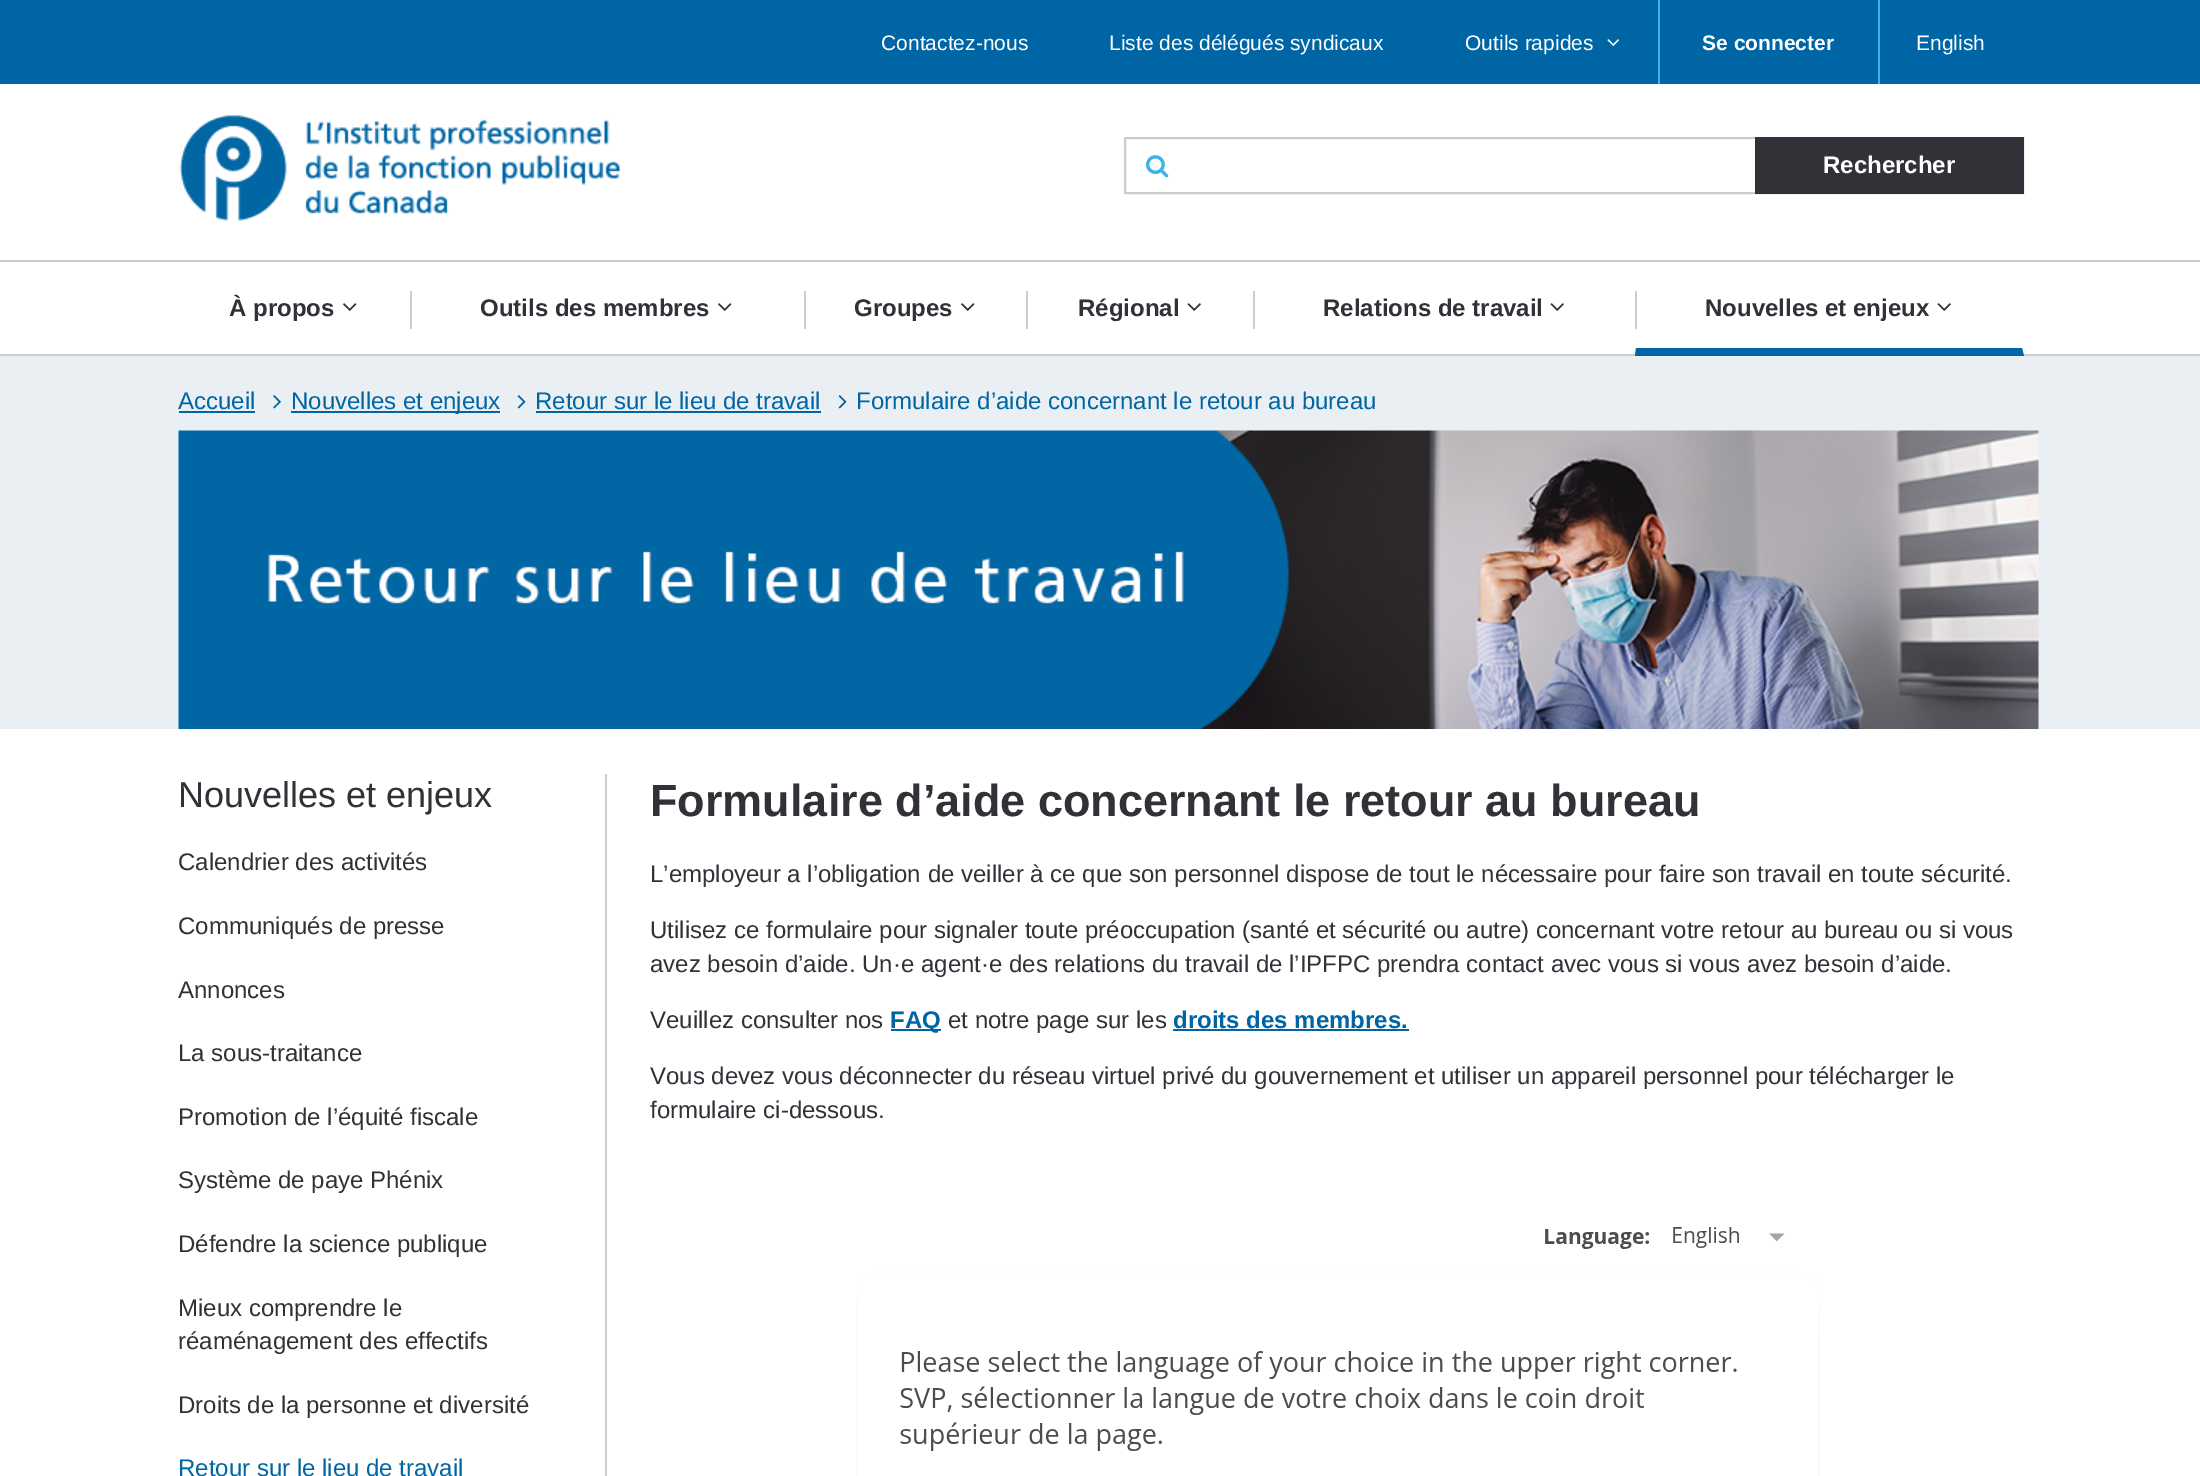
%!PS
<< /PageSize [2200 1476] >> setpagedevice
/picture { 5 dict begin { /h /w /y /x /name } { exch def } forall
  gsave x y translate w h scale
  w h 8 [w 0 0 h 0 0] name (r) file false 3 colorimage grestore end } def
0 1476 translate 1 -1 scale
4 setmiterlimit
1 setgray
0 0 2200 1476 rectfill
0 0.396 0.643 setrgbcolor
0 0 2200 84 rectfill
/LiberationSans-Regular [21 0 0 -21 0 0] selectfont
1 setgray
881 50 moveto (Contactez-nous) show
1109 50 moveto (Liste des délégués syndicaux) show
0.224 0.698 0.933 setrgbcolor
1658 0 2 84 rectfill
1 setgray
1465 50 moveto (Outils rapides) show
(img1.rgb) 1607 39 12 7 picture
/LiberationSans-Bold [21 0 0 -21 0 0] selectfont
1702 50 moveto (Se connecter) show
0.224 0.698 0.933 setrgbcolor
1878 0 2 84 rectfill
/LiberationSans-Regular [21 0 0 -21 0 0] selectfont
1 setgray
1916 50 moveto (English) show
(img2.rgb) 179 115 442 106 picture
0.8 setgray
2 setlinewidth
1125 138 898 55 rectstroke
(img3.rgb) 1146 155 23 23 picture
0.2 0.188 0.22 setrgbcolor
1755 137 269 57 rectfill
/LiberationSans-Bold [24 0 0 -24 0 0] selectfont
1 setgray
1823 173 moveto (Rechercher) show
0.8 setgray
0 260 2200 2 rectfill
0.2 0.188 0.22 setrgbcolor
229 316 moveto (À propos) show
(img4.rgb) 343 303 14 8 picture
0.8 setgray
410 291 2 38 rectfill
0.2 0.188 0.22 setrgbcolor
480 316 moveto (Outils des membres) show
(img4.rgb) 718 303 14 8 picture
0.8 setgray
804 291 2 38 rectfill
0.2 0.188 0.22 setrgbcolor
854 316 moveto (Groupes) show
(img4.rgb) 961 303 14 8 picture
0.8 setgray
1026 291 2 38 rectfill
0.2 0.188 0.22 setrgbcolor
1078 316 moveto (Régional) show
(img5.rgb) 1187 303 14 8 picture
0.8 setgray
1253 291 2 38 rectfill
0.2 0.188 0.22 setrgbcolor
1323 316 moveto (Relations de travail) show
(img5.rgb) 1550 303 14 8 picture
0.8 setgray
1635 291 2 38 rectfill
0 354 2200 2 rectfill
0 0.396 0.643 setrgbcolor
newpath 2024 356 moveto 1635 356 lineto 1636 348 lineto 2022 348 lineto closepath fill
0.2 0.188 0.22 setrgbcolor
1705 316 moveto (Nouvelles et enjeux) show
(img5.rgb) 1937 303 14 8 picture
0.914 0.937 0.953 setrgbcolor
0 356 2200 373 rectfill
/LiberationSans-Regular [24 0 0 -24 0 0] selectfont
0 0.396 0.643 setrgbcolor
178 409 moveto (Accueil) show
179 411 76 2 rectfill
(img6.rgb) 273 395 8 14 picture
291 411 209 2 rectfill
291 409 moveto (Nouvelles et enjeux) show
(img7.rgb) 517 395 9 14 picture
535 409 moveto (Retour sur le lieu de travail) show
536 411 285 2 rectfill
(img7.rgb) 838 395 9 14 picture
856 409 moveto (Formulaire d’aide concernant le retour au bureau) show
(img8.rgb) 178 430 1861 299 picture
0.8 setgray
605 774 2 702 rectfill
/LiberationSans-Regular [36 0 0 -36 0 0] selectfont
0.2 0.188 0.22 setrgbcolor
178 807 moveto (Nouvelles et enjeux) show
/LiberationSans-Regular [24 0 0 -24 0 0] selectfont
178 870 moveto (Calendrier des activités) show
178 934 moveto (Communiqués de presse) show
178 998 moveto (Annonces) show
178 1061 moveto (La sous-traitance) show
178 1125 moveto (Promotion de l’équité fiscale) show
178 1188 moveto (Système de paye Phénix) show
178 1252 moveto (Défendre la science publique) show
178 1316 moveto (Mieux comprendre le) show
178 1349 moveto (réaménagement des effectifs) show
178 1413 moveto (Droits de la personne et diversité) show
0 0.396 0.643 setrgbcolor
178 1476 moveto (Retour sur le lieu de travail) show
/LiberationSans-Bold [45 0 0 -45 0 0] selectfont
0.2 0.188 0.22 setrgbcolor
650 816 moveto (Formulaire d’aide concernant le retour au bureau) show
/LiberationSans-Regular [24 0 0 -24 0 0] selectfont
650 882 moveto (L’employeur a l’obligation de veiller à ce que son personnel dispose de tout le nécessaire pour faire son travail en toute sécurité.) show
650 938 moveto (Utilisez ce formulaire pour signaler toute préoccupation \(santé et sécurité ou autre\) concernant votre retour au bureau ou si vous) show
650 972 moveto (avez besoin d’aide. Un·e agent·e des relations du travail de l’IPFPC prendra contact avec vous si vous avez besoin d’aide.) show
650 1028 moveto (Veuillez consulter nos) show
0 0.396 0.643 setrgbcolor
891 1029 50 2 rectfill
/LiberationSans-Bold [24 0 0 -24 0 0] selectfont
890 1028 moveto (FAQ) show
/LiberationSans-Regular [24 0 0 -24 0 0] selectfont
0.2 0.188 0.22 setrgbcolor
948 1028 moveto (et notre page sur les) show
/LiberationSans-Bold [24 0 0 -24 0 0] selectfont
0 0.396 0.643 setrgbcolor
1173 1028 moveto (droits des membres.) show
1173 1029 236 2 rectfill
/LiberationSans-Regular [24 0 0 -24 0 0] selectfont
0.2 0.188 0.22 setrgbcolor
650 1084 moveto (Vous devez vous déconnecter du réseau virtuel privé du gouvernement et utiliser un appareil personnel pour télécharger le) show
650 1118 moveto (formulaire ci-dessous.) show
(img9.rgb) 856 1227 964 249 picture
showpage
